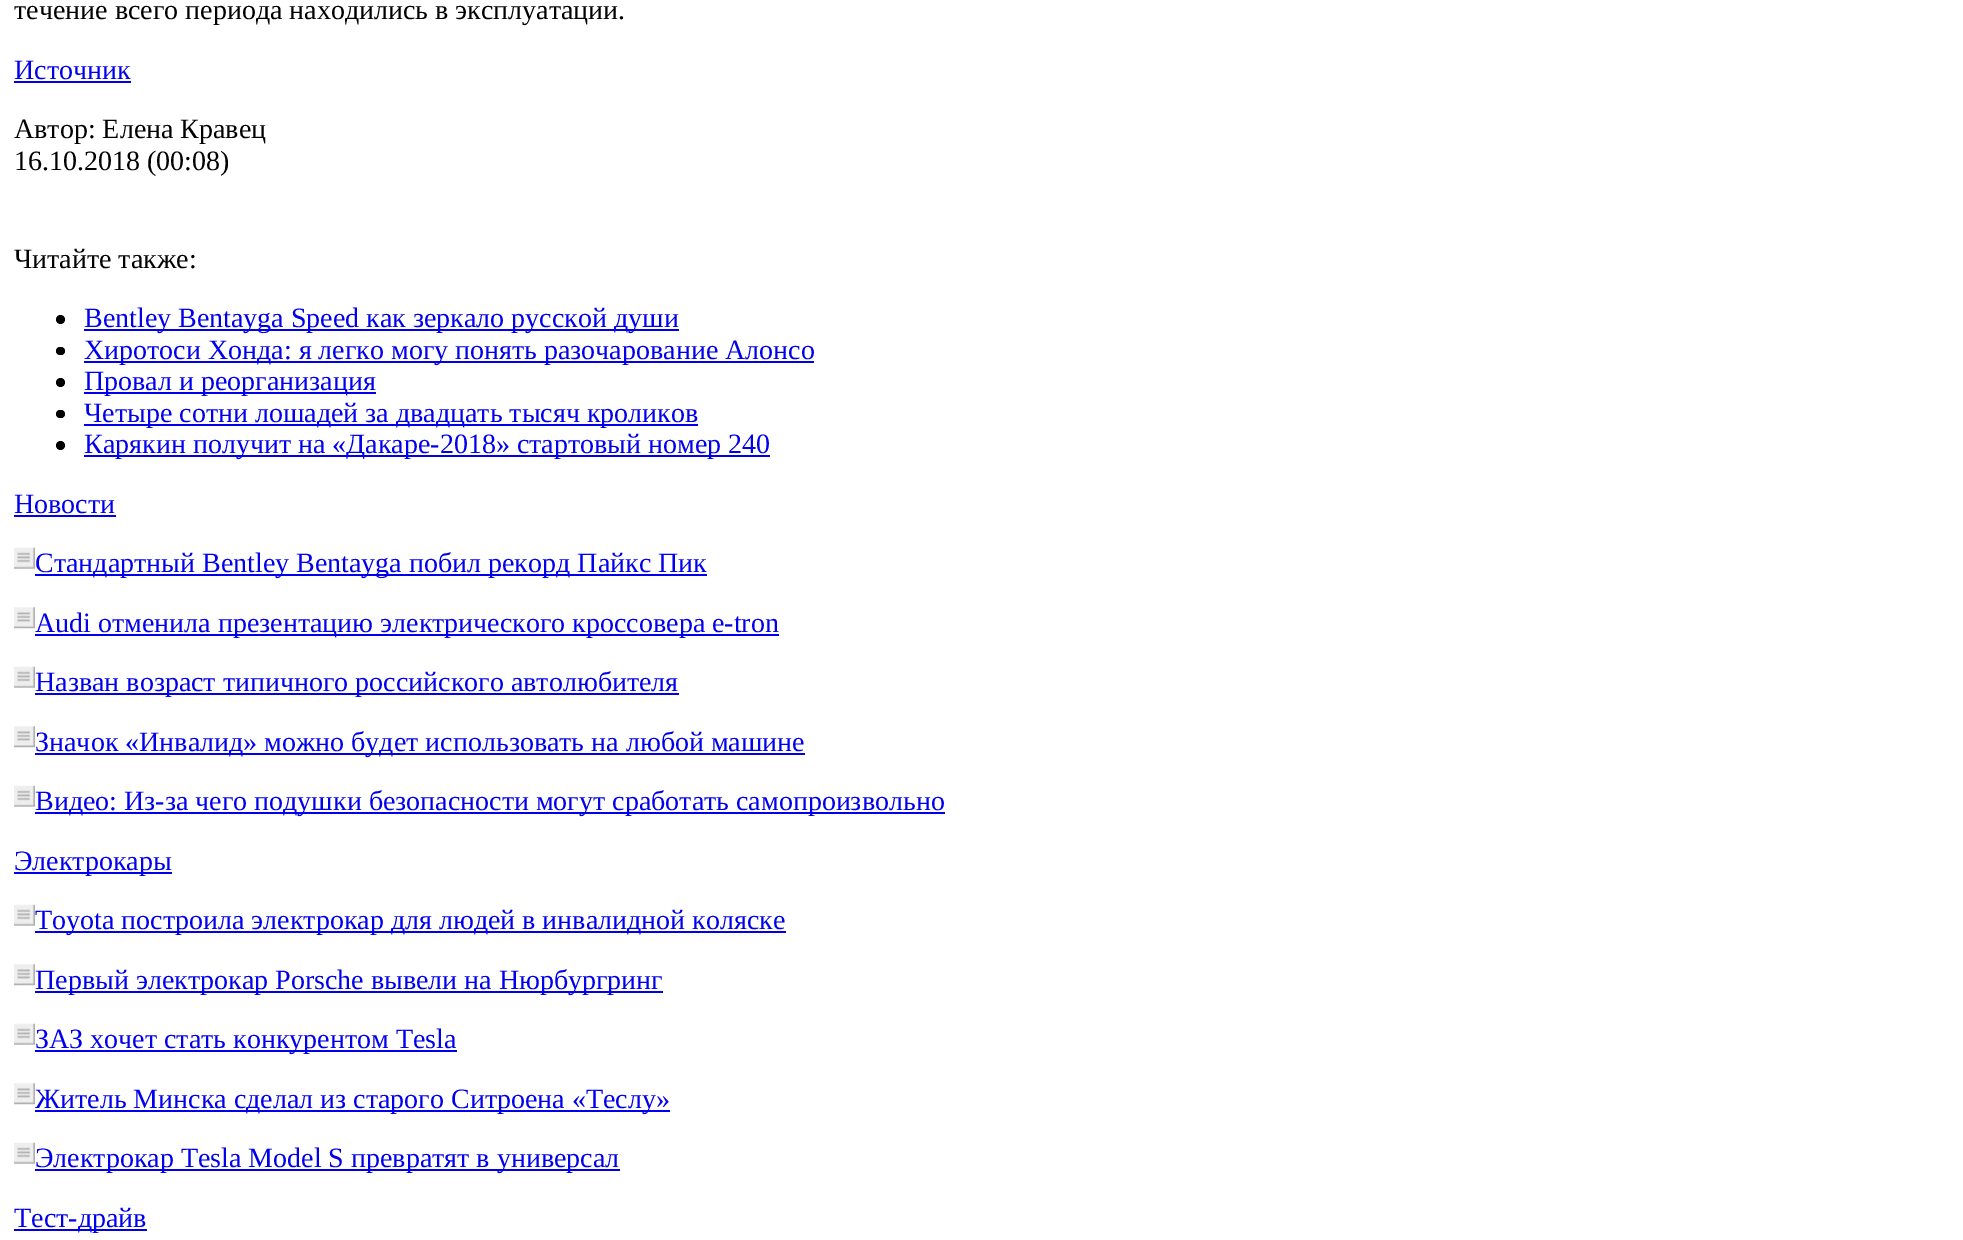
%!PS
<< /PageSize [1963 1240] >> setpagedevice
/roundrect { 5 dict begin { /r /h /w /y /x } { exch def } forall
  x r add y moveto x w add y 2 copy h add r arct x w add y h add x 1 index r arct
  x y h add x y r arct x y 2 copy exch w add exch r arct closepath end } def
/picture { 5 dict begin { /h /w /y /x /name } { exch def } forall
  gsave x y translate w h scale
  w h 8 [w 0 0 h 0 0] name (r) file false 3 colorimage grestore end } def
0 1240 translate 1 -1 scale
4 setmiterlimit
1 setgray
0 0 1963 1240 rectfill
/LiberationSerif-Regular [28 0 0 -28 0 0] selectfont
0 setgray
14 19 moveto (течение всего периода находились в эксплуатации.) show
0 0 0.933 setrgbcolor
14 79 moveto (Источник) show
14 81 117 2 rectfill
0 setgray
14 138 moveto (Автор: Елена Кравец) show
14 170 moveto (16.10.2018 \(00:08\)) show
14 268 moveto (Читайте также:) show
newpath 60.5 319.5 4.5 0 360 arc closepath fill
0 0 0.933 setrgbcolor
84 329 595 2 rectfill
84 327 moveto (Bentley Bentayga Speed как зеркало русской души) show
0 setgray
56 347 9 8 4 roundrect fill
0 0 0.933 setrgbcolor
84 361 730 2 rectfill
84 359 moveto (Хиротоси Хонда: я легко могу понять разочарование Алонсо) show
0 setgray
newpath 60.5 382.5 4.5 0 360 arc closepath fill
0 0 0.933 setrgbcolor
84 392 292 2 rectfill
84 390 moveto (Провал и реорганизация) show
0 setgray
56 410 9 8 4 roundrect fill
0 0 0.933 setrgbcolor
84 424 614 2 rectfill
84 422 moveto (Четыре сотни лошадей за двадцать тысяч кроликов) show
0 setgray
newpath 60.5 445.5 4.5 0 360 arc closepath fill
0 0 0.933 setrgbcolor
84 455 686 2 rectfill
84 453 moveto (Карякин получит на «Дакаре-2018» стартовый номер 240) show
14 513 moveto (Новости) show
14 515 102 2 rectfill
(img1.rgb) 14 547 21 22 picture
35 574 672 2 rectfill
35 572 moveto (Стандартный Bentley Bentayga побил рекорд Пайкс Пик) show
(img2.rgb) 14 607 21 22 picture
35 634 744 2 rectfill
35 632 moveto (Audi отменила презентацию электрического кроссовера e-tron) show
(img1.rgb) 14 666 21 22 picture
35 693 644 2 rectfill
35 691 moveto (Назван возраст типичного российского автолюбителя) show
(img3.rgb) 14 726 21 22 picture
35 753 770 2 rectfill
35 751 moveto (Значок «Инвалид» можно будет использовать на любой машине) show
(img1.rgb) 14 785 21 22 picture
35 812 910 2 rectfill
35 810 moveto (Видео: Из-за чего подушки безопасности могут сработать самопроизвольно) show
14 872 158 2 rectfill
14 870 moveto (Электрокары) show
(img1.rgb) 14 904 21 22 picture
35 931 751 2 rectfill
35 929 moveto (Toyota построила электрокар для людей в инвалидной коляске) show
(img3.rgb) 14 964 21 22 picture
35 991 628 2 rectfill
35 989 moveto (Первый электрокар Porsche вывели на Нюрбургринг) show
(img1.rgb) 14 1023 21 22 picture
35 1050 422 2 rectfill
35 1048 moveto (ЗАЗ хочет стать конкурентом Tesla) show
(img3.rgb) 14 1083 21 22 picture
35 1110 635 2 rectfill
35 1108 moveto (Житель Минска сделал из старого Ситроена «Теслу») show
(img1.rgb) 14 1142 21 22 picture
35 1169 585 2 rectfill
35 1167 moveto (Электрокар Tesla Model S превратят в универсал) show
14 1229 133 2 rectfill
14 1227 moveto (Тест-драйв) show
showpage
